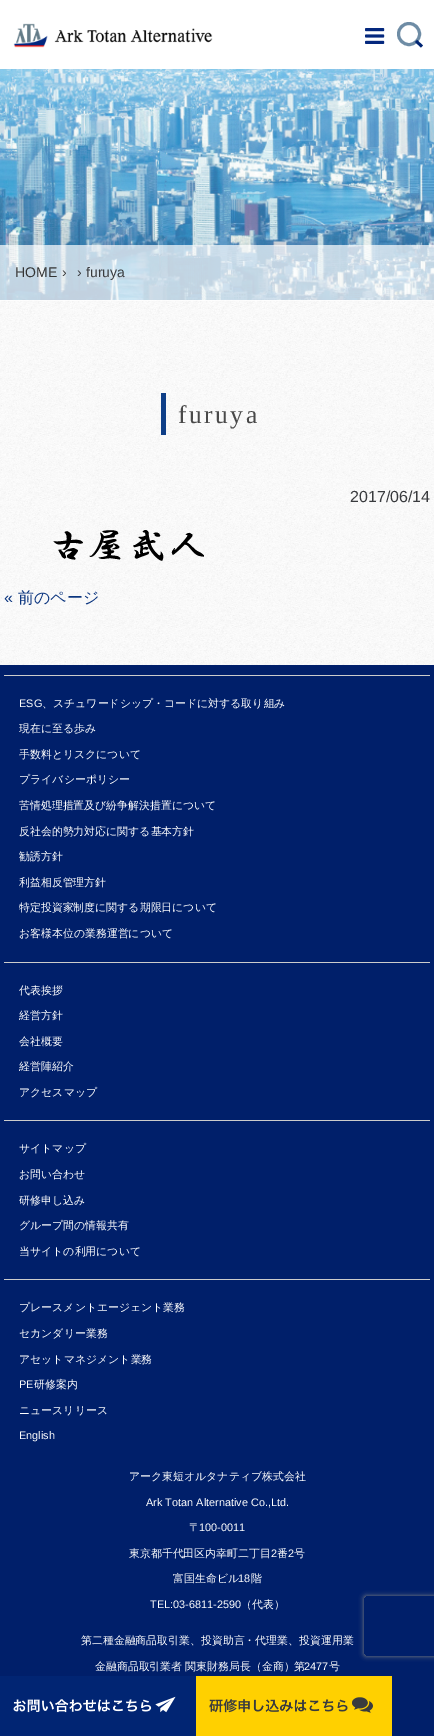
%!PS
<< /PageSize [434 1736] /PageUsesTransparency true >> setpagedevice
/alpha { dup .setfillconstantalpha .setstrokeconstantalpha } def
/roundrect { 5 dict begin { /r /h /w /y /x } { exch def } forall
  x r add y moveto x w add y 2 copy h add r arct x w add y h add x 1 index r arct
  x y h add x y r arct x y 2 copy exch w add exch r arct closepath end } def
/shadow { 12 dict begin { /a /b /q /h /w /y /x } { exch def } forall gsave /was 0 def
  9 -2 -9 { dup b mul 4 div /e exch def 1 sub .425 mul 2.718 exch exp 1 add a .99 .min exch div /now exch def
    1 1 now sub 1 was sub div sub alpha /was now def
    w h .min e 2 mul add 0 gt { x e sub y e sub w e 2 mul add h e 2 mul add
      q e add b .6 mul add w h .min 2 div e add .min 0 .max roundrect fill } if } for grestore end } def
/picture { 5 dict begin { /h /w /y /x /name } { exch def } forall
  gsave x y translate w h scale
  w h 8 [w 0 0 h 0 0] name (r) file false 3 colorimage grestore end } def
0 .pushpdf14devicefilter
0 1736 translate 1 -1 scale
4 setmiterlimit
1 setgray
0 0 434 1736 rectfill
(img1.rgb) 0 69 434 596 picture
(img2.rgb) 13 23 200 25 picture
(img3.rgb) 365 28 20 16 picture
0.431 0.549 0.647 setrgbcolor
3 setlinewidth
newpath 409 34 10.5 0 360 arc closepath stroke
0 0.141 0.451 setrgbcolor
newpath 417 40 moveto 423 45.5 lineto 421 47.5 lineto 415 42 lineto closepath fill
(img4.rgb) 0 69 434 231 picture
0.7 alpha
1 setgray
0 245 434 56 rectfill
/LiberationSans-Regular [14 0 0 -14 0 0] selectfont
1 alpha
0.2 setgray
15 277 moveto (HOME) show
0.224 0.231 0.243 setrgbcolor
62 277 moveto (›) show
77 277 moveto (›) show
86 277 moveto (furuya) show
/LiberationSerif-Regular [25.5 0 0 -25.5 0 0] selectfont
0.286 setgray
178 423 moveto 2.5 0 (furuya) ashow
0.059 0.247 0.533 setrgbcolor
161 393 5 42 rectfill
/LiberationSans-Regular [16 0 0 -16 0 0] selectfont
0.224 0.231 0.243 setrgbcolor
350 502 moveto (2017/06/14) show
(img5.rgb) 53 530 151 31 picture
0.043 0.208 0.498 setrgbcolor
4 603 moveto («) show
/WenQuanYiZenHei-Medium [16 0 0 -16 0 0] selectfont
18 603 moveto (前のページ) show
0 0.122 0.416 setrgbcolor
0 665 434 1071 rectfill
0.8 setgray
4 675 426 1 rectfill
/LiberationSans-Regular [10.9 0 0 -10.9 0 0] selectfont
1 setgray
19 707 moveto (ESG) show
/WenQuanYiZenHei-Medium [10.9 0 0 -10.9 0 0] selectfont
42 707 moveto (、スチュワードシップ・コードに対する取り組み) show
19 732 moveto (現在に至る歩み) show
19 758 moveto (手数料とリスクについて) show
19 783 moveto (プライバシーポリシー) show
19 809 moveto (苦情処理措置及び紛争解決措置について) show
19 835 moveto (反社会的勢力対応に関する基本方針) show
19 860 moveto (勧誘方針) show
19 886 moveto (利益相反管理方針) show
19 911 moveto (特定投資家制度に関する期限日について) show
19 937 moveto (お客様本位の業務運営について) show
0.8 setgray
4 962 426 1 rectfill
1 setgray
19 994 moveto (代表挨拶) show
19 1019 moveto (経営方針) show
19 1045 moveto (会社概要) show
19 1070 moveto (経営陣紹介) show
19 1096 moveto (アクセスマップ) show
0.8 setgray
4 1120 426 1 rectfill
1 setgray
19 1152 moveto (サイトマップ) show
19 1178 moveto (お問い合わせ) show
19 1204 moveto (研修申し込み) show
19 1229 moveto (グループ間の情報共有) show
19 1255 moveto (当サイトの利用について) show
0.8 setgray
4 1279 426 1 rectfill
1 setgray
19 1311 moveto (プレースメントエージェント業務) show
19 1337 moveto (セカンダリー業務) show
19 1363 moveto (アセットマネジメント業務) show
/LiberationSans-Regular [10.9 0 0 -10.9 0 0] selectfont
19 1388 moveto (PE) show
/WenQuanYiZenHei-Medium [10.9 0 0 -10.9 0 0] selectfont
34 1388 moveto (研修案内) show
19 1414 moveto (ニュースリリース) show
/LiberationSans-Regular [10.9 0 0 -10.9 0 0] selectfont
19 1439 moveto (English) show
/WenQuanYiZenHei-Medium [10.9 0 0 -10.9 0 0] selectfont
129 1480 moveto (アーク東短オルタナティブ株式会社) show
/LiberationSans-Regular [10.9 0 0 -10.9 0 0] selectfont
146 1506 moveto (Ark Totan Alternative Co.,Ltd.) show
/WenQuanYiZenHei-Medium [10.9 0 0 -10.9 0 0] selectfont
189 1531 moveto (〒) show
/LiberationSans-Regular [10.9 0 0 -10.9 0 0] selectfont
199 1531 moveto (100-0011) show
/WenQuanYiZenHei-Medium [10.9 0 0 -10.9 0 0] selectfont
129 1557 moveto (東京都千代田区内幸町二丁目) show
/LiberationSans-Regular [10.9 0 0 -10.9 0 0] selectfont
271 1557 moveto (2) show
/WenQuanYiZenHei-Medium [10.9 0 0 -10.9 0 0] selectfont
277 1557 moveto (番) show
/LiberationSans-Regular [10.9 0 0 -10.9 0 0] selectfont
288 1557 moveto (2) show
/WenQuanYiZenHei-Medium [10.9 0 0 -10.9 0 0] selectfont
294 1557 moveto (号) show
173 1582 moveto (富国生命ビル) show
/LiberationSans-Regular [10.9 0 0 -10.9 0 0] selectfont
238 1582 moveto (18) show
/WenQuanYiZenHei-Medium [10.9 0 0 -10.9 0 0] selectfont
251 1582 moveto (階) show
/LiberationSans-Regular [10.9 0 0 -10.9 0 0] selectfont
150 1608 moveto (TEL:03-6811-2590) show
/WenQuanYiZenHei-Medium [10.9 0 0 -10.9 0 0] selectfont
241 1608 moveto (（代表）) show
81 1644 moveto (第二種金融商品取引業、投資助言・代理業、投資運用業) show
95 1670 moveto (金融商品取引業者 関東財務局長（金商）第) show
/LiberationSans-Regular [10.9 0 0 -10.9 0 0] selectfont
304 1670 moveto (2477) show
/WenQuanYiZenHei-Medium [10.9 0 0 -10.9 0 0] selectfont
329 1670 moveto (号) show
gsave
newpath 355 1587 moveto 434 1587 lineto 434 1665 lineto 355 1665 lineto closepath 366 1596 moveto 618 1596 lineto 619 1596 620 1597 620 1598 curveto 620 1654 lineto 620 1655 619 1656 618 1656 curveto 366 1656 lineto 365 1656 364 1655 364 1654 curveto 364 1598 lineto 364 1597 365 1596 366 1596 curveto closepath eoclip newpath
0.502 setgray
364 1596 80 60 2 2.5 1 shadow
grestore
0.004 0.145 0.451 setrgbcolor
0 1676 196 60 rectfill
(img6.rgb) 13 1696 163 17 picture
1 0.816 0 setrgbcolor
196 1676 196 60 rectfill
(img7.rgb) 209 1697 164 16 picture
.poppdf14devicefilter showpage
